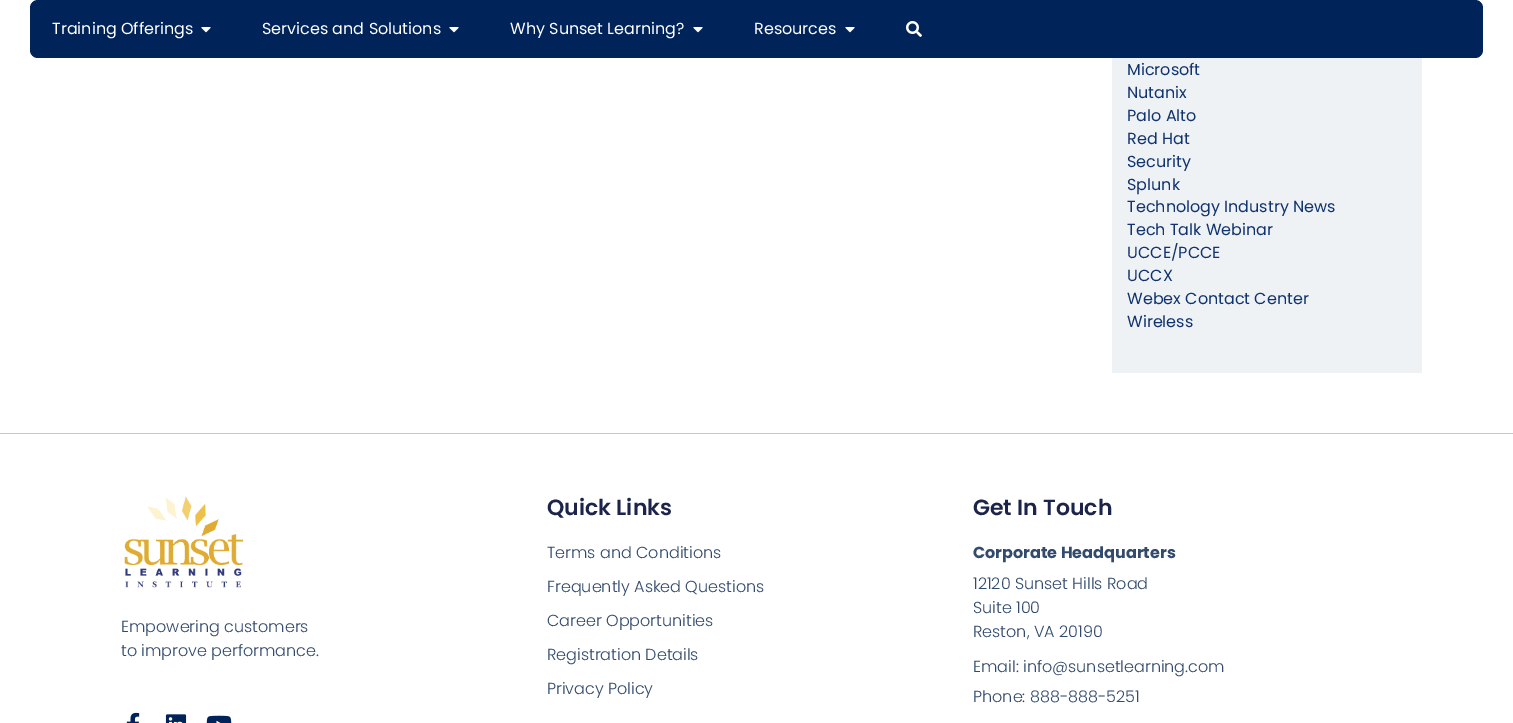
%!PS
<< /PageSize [1513 723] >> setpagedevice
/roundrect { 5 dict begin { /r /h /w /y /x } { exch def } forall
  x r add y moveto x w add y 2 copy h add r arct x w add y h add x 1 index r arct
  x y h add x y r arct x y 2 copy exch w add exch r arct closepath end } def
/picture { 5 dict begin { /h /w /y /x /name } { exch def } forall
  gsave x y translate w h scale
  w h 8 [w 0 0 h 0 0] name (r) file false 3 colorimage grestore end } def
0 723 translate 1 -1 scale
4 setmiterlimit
1 setgray
0 0 1513 723 rectfill
0 0.137 0.349 setrgbcolor
30 0 1453 58 8 roundrect fill
/Poppins-Regular [16 0 0 -16 0 0] selectfont
1 setgray
52 34 moveto (Training Offerings) show
(img1.rgb) 201 27 10 6 picture
262 34 moveto (Services and Solutions) show
(img1.rgb) 449 27 10 6 picture
510 34 moveto (Why Sunset Learning?) show
(img1.rgb) 693 27 10 6 picture
754 34 moveto (Resources) show
(img1.rgb) 845 27 10 6 picture
(img2.rgb) 906 21 16 16 picture
0.933 0.949 0.957 setrgbcolor
1112 58 310 315 rectfill
0.067 0.2 0.435 setrgbcolor
1127 75 moveto (Microsoft) show
1127 98 moveto (Nutanix) show
1127 121 moveto (Palo Alto) show
1127 144 moveto (Red Hat) show
1127 167 moveto (Security) show
1127 190 moveto (Splunk) show
1127 212 moveto (Technology Industry News) show
1127 235 moveto (Tech Talk Webinar) show
1127 258 moveto (UCCE/PCCE) show
1127 281 moveto (UCCX) show
1127 304 moveto (Webex Contact Center) show
1127 327 moveto (Wireless) show
0.773 0.78 0.788 setrgbcolor
0 433 1513 1 rectfill
(img3.rgb) 124 496 120 92 picture
/Poppins-Light [16 0 0 -16 0 0] selectfont
0.196 0.29 0.427 setrgbcolor
121 632 moveto (Empowering customers) show
121 656 moveto (to improve performance.) show
(img4.rgb) 126 712 14 11 picture
(img5.rgb) 165 714 22 9 picture
(img6.rgb) 206 715 26 8 picture
/Poppins-SemiBold [22 0 0 -22 0 0] selectfont
0.11 0.141 0.294 setrgbcolor
547 515 moveto (Quick Links) show
/Poppins-Light [16 0 0 -16 0 0] selectfont
0.196 0.29 0.427 setrgbcolor
547 558 moveto (Terms and Conditions) show
547 592 moveto (Frequently Asked Questions) show
547 626 moveto (Career Opportunities) show
547 660 moveto (Registration Details) show
547 694 moveto (Privacy Policy) show
/Poppins-SemiBold [22 0 0 -22 0 0] selectfont
0.11 0.141 0.294 setrgbcolor
973 515 moveto (Get In Touch) show
/Poppins-Bold [16 0 0 -16 0 0] selectfont
0.196 0.29 0.427 setrgbcolor
973 558 moveto (Corporate Headquarters) show
/Poppins-Light [16 0 0 -16 0 0] selectfont
973 589 moveto (12120 Sunset Hills Road) show
973 613 moveto (Suite 100) show
973 637 moveto (Reston, VA 20190) show
973 672 moveto (Email: info@sunsetlearning.com) show
973 702 moveto (Phone: 888-888-5251) show
showpage
